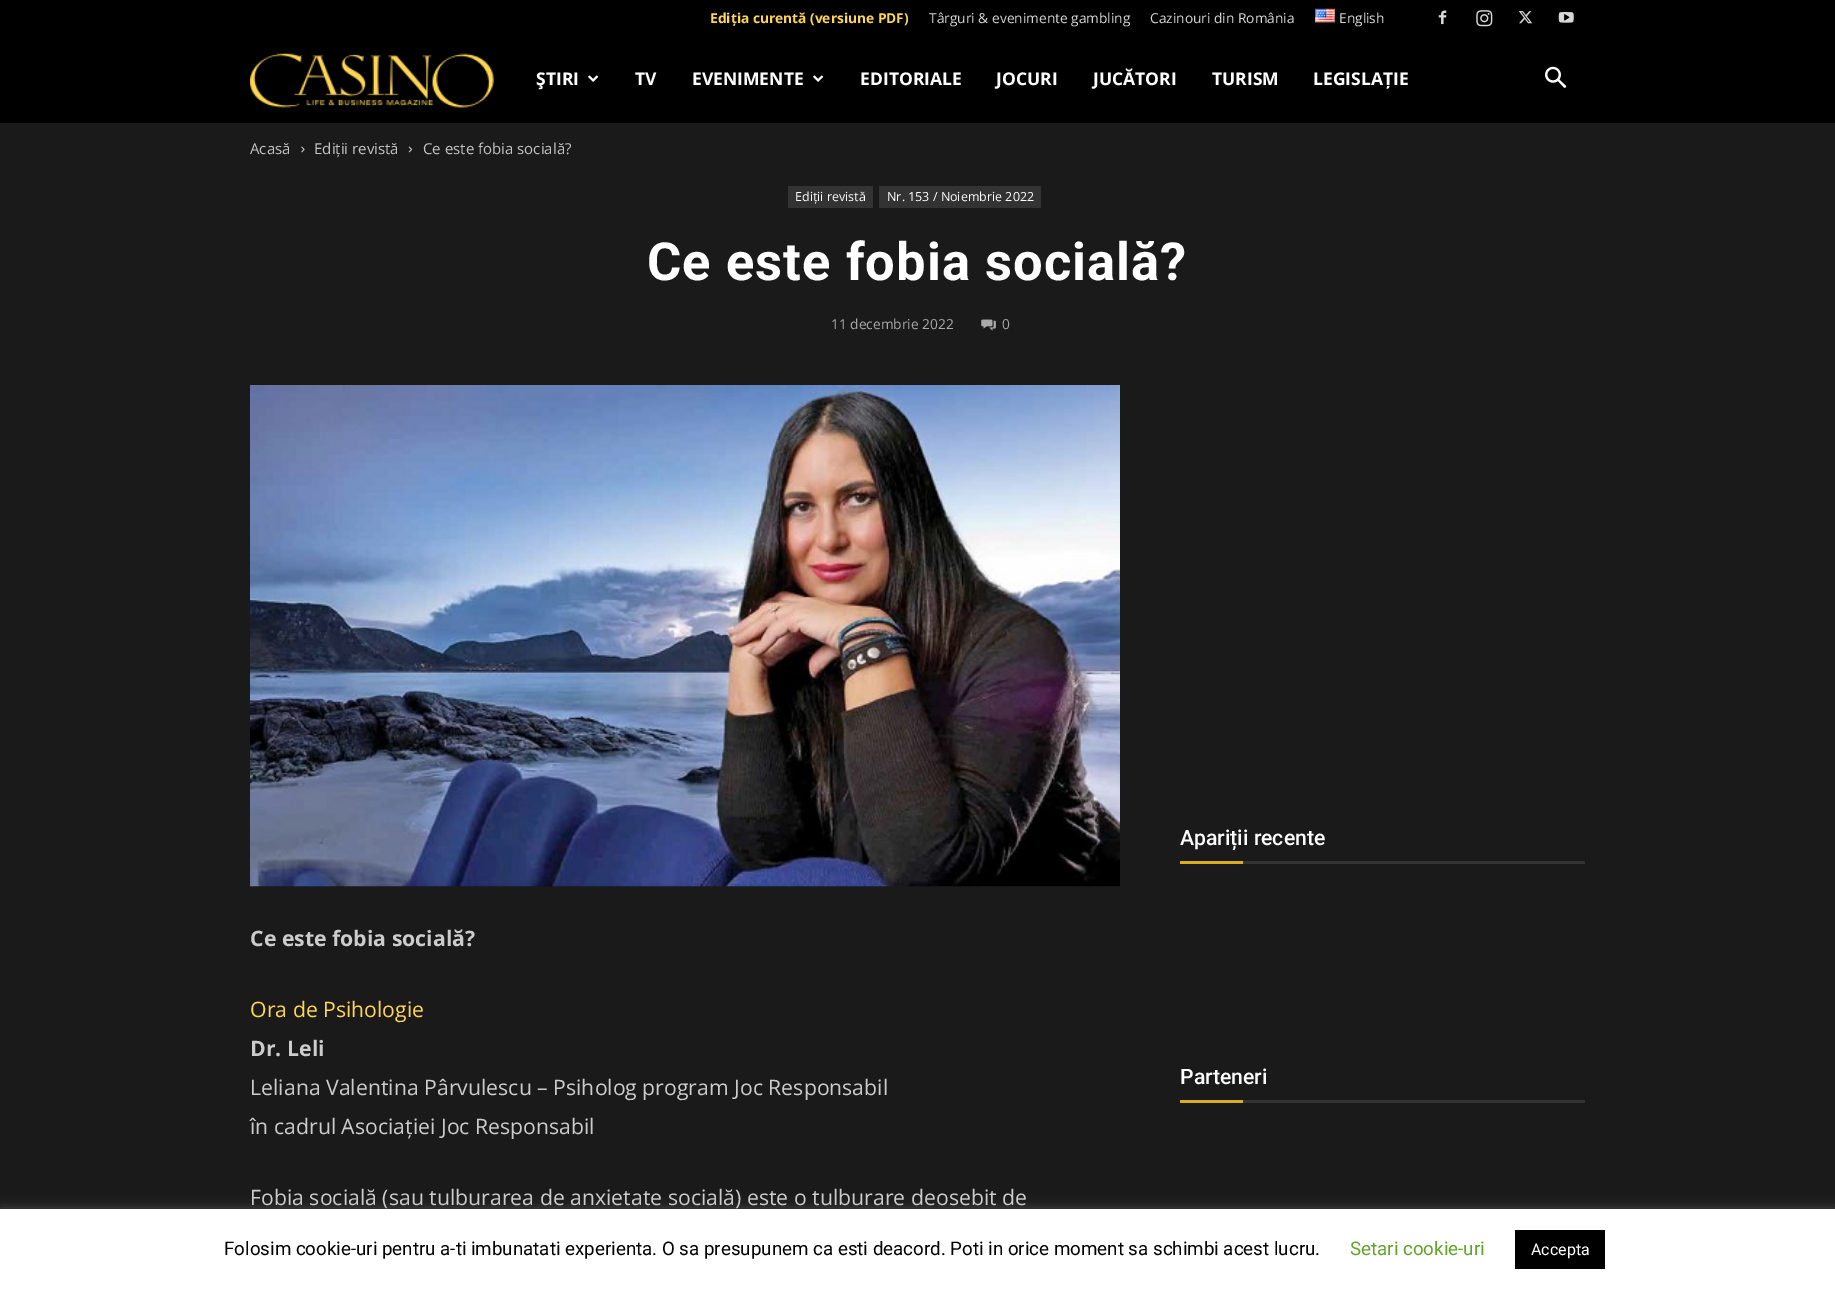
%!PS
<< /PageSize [1835 1290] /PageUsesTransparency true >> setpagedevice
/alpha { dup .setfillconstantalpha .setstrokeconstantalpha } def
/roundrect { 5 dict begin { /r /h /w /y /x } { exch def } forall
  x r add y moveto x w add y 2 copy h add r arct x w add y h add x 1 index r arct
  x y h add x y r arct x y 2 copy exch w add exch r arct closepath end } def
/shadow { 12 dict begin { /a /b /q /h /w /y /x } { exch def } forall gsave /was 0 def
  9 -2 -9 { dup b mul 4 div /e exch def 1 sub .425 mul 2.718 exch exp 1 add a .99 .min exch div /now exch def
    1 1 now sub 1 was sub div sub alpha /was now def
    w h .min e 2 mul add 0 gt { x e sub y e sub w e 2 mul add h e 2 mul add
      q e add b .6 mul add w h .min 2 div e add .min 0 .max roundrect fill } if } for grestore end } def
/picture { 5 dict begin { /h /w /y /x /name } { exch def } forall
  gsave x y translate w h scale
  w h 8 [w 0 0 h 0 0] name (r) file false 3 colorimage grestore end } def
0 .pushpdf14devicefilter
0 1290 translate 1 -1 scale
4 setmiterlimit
0.102 setgray
0 0 1835 1290 rectfill
0 setgray
0 0 1835 123 rectfill
/OpenSans-Bold [13.75 0 0 -13.75 0 0] selectfont
1 0.839 0.325 setrgbcolor
710 23 moveto (Ediția curentă \(versiune PDF\)) show
/OpenSans-Regular [13.75 0 0 -13.75 0 0] selectfont
0.847 setgray
929 23 moveto (Târguri & evenimente gambling) show
1150 23 moveto (Cazinouri din România) show
(img1.rgb) 1315 8 20 15 picture
1339 23 moveto (English) show
(img2.rgb) 1438 10 9 15 picture
(img3.rgb) 1476 10 17 17 picture
(img4.rgb) 1518 11 15 13 picture
(img5.rgb) 1558 12 16 11 picture
(img6.rgb) 250 53 244 55 picture
/OpenSans-Bold [17.5 0 0 -17.5 0 0] selectfont
1 setgray
536 85 moveto (ŞTIRI) show
(img7.rgb) 588 75 11 7 picture
635 85 moveto (TV) show
692 85 moveto (EVENIMENTE) show
(img7.rgb) 813 75 11 7 picture
860 85 moveto (EDITORIALE) show
996 85 moveto (JOCURI) show
1093 85 moveto (JUCĂTORI) show
1212 85 moveto (TURISM) show
1313 85 moveto (LEGISLAȚIE) show
(img8.rgb) 1545 66 22 22 picture
/OpenSans-Regular [15 0 0 -15 0 0] selectfont
0.765 setgray
250 154 moveto (Acasă) show
(img9.rgb) 301 146 4 7 picture
314 154 moveto (Ediții revistă) show
(img10.rgb) 408 146 5 7 picture
423 154 moveto (Ce este fobia socială?) show
0.2 setgray
788 186 85 22 rectfill
/OpenSans-Regular [12.5 0 0 -12.5 0 0] selectfont
1 setgray
795 201 moveto (Ediții revistă) show
0.2 setgray
879 186 162 22 rectfill
1 setgray
887 201 moveto (Nr. 153 / Noiembrie 2022) show
/Roboto-Bold [52.5 0 0 -52.5 0 0] selectfont
647 280 moveto 1.05 0 (Ce este fobia socială?) ashow
/OpenSans-Regular [13.75 0 0 -13.75 0 0] selectfont
0.667 setgray
831 329 moveto (11 decembrie 2022) show
(img11.rgb) 981 319 15 12 picture
1002 329 moveto (0) show
(img12.rgb) 250 385 870 502 picture
/OpenSans-Bold [21.25 0 0 -21.25 0 0] selectfont
0.8 setgray
250 946 moveto (Ce este fobia socială?) show
/OpenSans-Regular [21.25 0 0 -21.25 0 0] selectfont
1 0.839 0.325 setrgbcolor
250 1017 moveto (Ora de Psihologie) show
/OpenSans-Bold [21.25 0 0 -21.25 0 0] selectfont
0.8 setgray
250 1056 moveto (Dr. Leli) show
/OpenSans-Regular [21.25 0 0 -21.25 0 0] selectfont
250 1095 moveto (Leliana Valentina Pârvulescu – Psiholog program Joc Responsabil) show
250 1134 moveto (în cadrul Asociației Joc Responsabil) show
250 1205 moveto (Fobia socială \(sau tulburarea de anxietate socială\) este o tulburare deosebit de) show
/Roboto-Medium [21.25 0 0 -21.25 0 0] selectfont
1 setgray
1180 845 moveto (Apariții recente) show
0.855 0.675 0.133 setrgbcolor
1180 861 63 3 rectfill
0.2 setgray
1243 861 342 3 rectfill
1 setgray
1180 1084 moveto (Parteneri) show
0.855 0.675 0.133 setrgbcolor
1180 1100 63 3 rectfill
0.2 setgray
1243 1100 342 3 rectfill
0.675 0.671 0.671 setrgbcolor
0 1208 1835 81 0 6 0.3 shadow
1 setgray
0 1209 1835 81 rectfill
/Roboto-Regular [18.75 0 0 -18.75 0 0] selectfont
0 setgray
224 1255 moveto (Folosim cookie-uri pentru a-ti imbunatati experienta. O sa presupunem ca esti deacord. Poti in orice moment sa schimbi acest lucru.) show
0.384 0.639 0.161 setrgbcolor
1350 1255 moveto (Setari cookie-uri) show
0 setgray
1515 1230 90 39 rectfill
/Roboto-Regular [16 0 0 -16 0 0] selectfont
1 setgray
1531 1255 moveto (Accepta) show
.poppdf14devicefilter showpage
